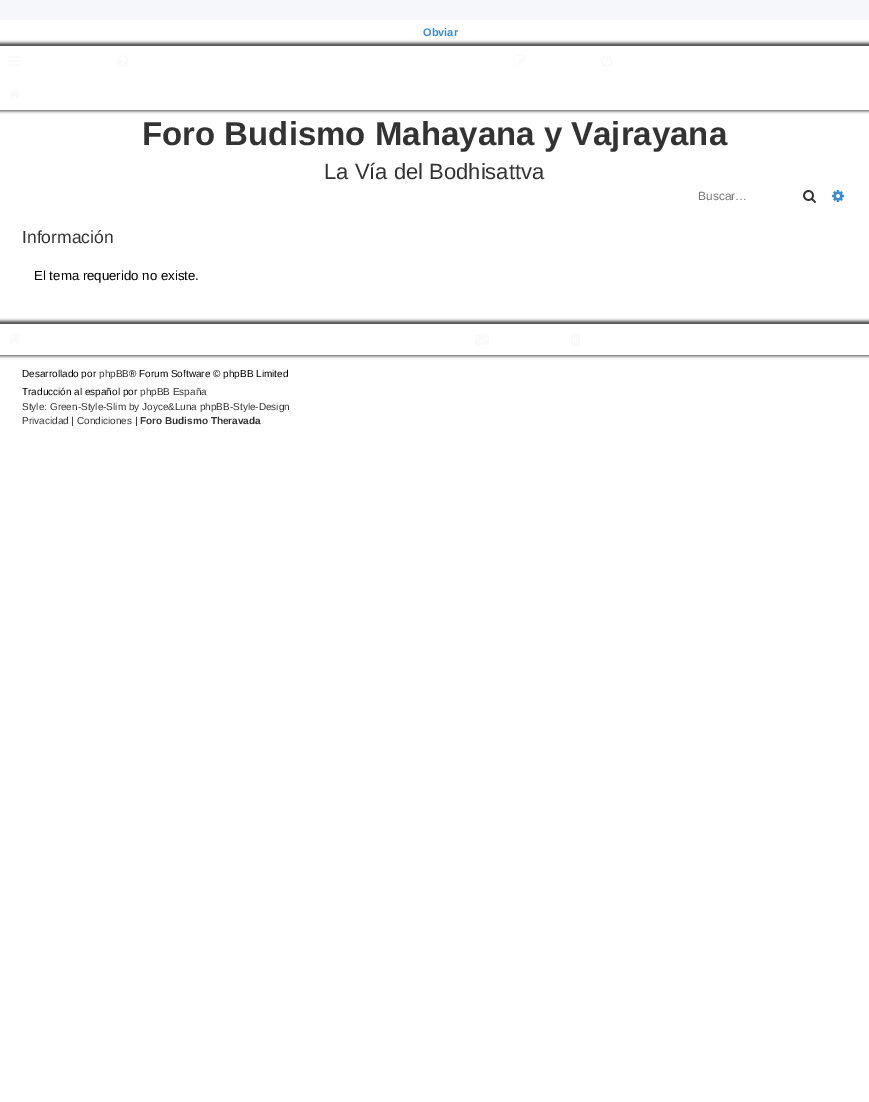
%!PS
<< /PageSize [869 1102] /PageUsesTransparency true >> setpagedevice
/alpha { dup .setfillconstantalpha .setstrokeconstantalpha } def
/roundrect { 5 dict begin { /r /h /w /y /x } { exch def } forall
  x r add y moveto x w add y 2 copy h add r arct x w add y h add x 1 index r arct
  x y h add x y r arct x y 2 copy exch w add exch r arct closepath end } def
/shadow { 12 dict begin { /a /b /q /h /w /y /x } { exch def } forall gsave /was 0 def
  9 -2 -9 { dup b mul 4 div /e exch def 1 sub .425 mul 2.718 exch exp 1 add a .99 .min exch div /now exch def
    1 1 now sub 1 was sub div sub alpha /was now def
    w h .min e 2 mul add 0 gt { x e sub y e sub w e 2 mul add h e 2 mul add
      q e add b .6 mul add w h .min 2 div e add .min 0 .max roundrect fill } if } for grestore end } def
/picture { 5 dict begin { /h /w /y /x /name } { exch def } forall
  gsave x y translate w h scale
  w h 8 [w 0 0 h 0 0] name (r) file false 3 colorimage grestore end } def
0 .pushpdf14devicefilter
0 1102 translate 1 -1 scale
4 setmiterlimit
1 setgray
0 0 869 1102 rectfill
0.961 0.969 0.98 setrgbcolor
0 0 869 20 rectfill
/LiberationSans-Bold [11 0 0 -11 0 0] selectfont
0.259 0.545 0.792 setrgbcolor
423 36 moveto (Obviar) show
gsave
newpath 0 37 moveto 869 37 lineto 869 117 lineto 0 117 lineto closepath -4 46 moveto 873 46 lineto 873 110 lineto -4 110 lineto closepath eoclip newpath
0.008 setgray
-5 43 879 68 0 1.5 0.7 shadow
grestore
(img1.rgb) 8 56 12 10 picture
(img2.rgb) 117 55 12 12 picture
(img3.rgb) 513 55 13 11 picture
(img4.rgb) 601 55 12 12 picture
(img5.rgb) 9 89 11 10 picture
/LiberationSans-Bold [33 0 0 -33 0 0] selectfont
0.2 setgray
142 145 moveto (Foro Budismo Mahayana y Vajrayana) show
/LiberationSans-Regular [22 0 0 -22 0 0] selectfont
324 179 moveto (La Vía del Bodhisattva) show
/LiberationSans-Regular [12 0 0 -12 0 0] selectfont
0.459 setgray
698 200 moveto (Buscar…) show
(img6.rgb) 803 190 13 13 picture
(img7.rgb) 832 190 12 12 picture
/LiberationSans-Regular [17.5 0 0 -17.5 0 0] selectfont
0.2 setgray
22 243 moveto (Información) show
/LiberationSans-Regular [13.25 0 0 -13.25 0 0] selectfont
0 setgray
34 280 moveto (El tema requerido no existe.) show
gsave
newpath 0 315 moveto 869 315 lineto 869 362 lineto 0 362 lineto closepath -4 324 moveto 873 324 lineto 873 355 lineto -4 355 lineto closepath eoclip newpath
0.008 setgray
-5 321 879 35 0 1.5 0.7 shadow
grestore
(img5.rgb) 9 334 11 10 picture
(img8.rgb) 475 334 14 11 picture
(img9.rgb) 570 333 11 12 picture
/LiberationSans-Regular [10 0 0 -10 0 0] selectfont
22 377 moveto (Desarrollado por) show
0.2 setgray
99 377 moveto (phpBB) show
0 setgray
129 377 moveto (® Forum Software © phpBB Limited) show
22 395 moveto (Traducción al español por) show
0.2 setgray
140 395 moveto (phpBB España) show
22 410 moveto (Style: Green-Style-Slim by Joyce&Luna phpBB-Style-Design) show
22 424 moveto (Privacidad) show
0 setgray
71 424 moveto (|) show
0.2 setgray
77 424 moveto (Condiciones) show
0 setgray
135 424 moveto (|) show
/LiberationSans-Bold [10 0 0 -10 0 0] selectfont
0.2 setgray
140 424 moveto (Foro Budismo Theravada) show
.poppdf14devicefilter showpage
